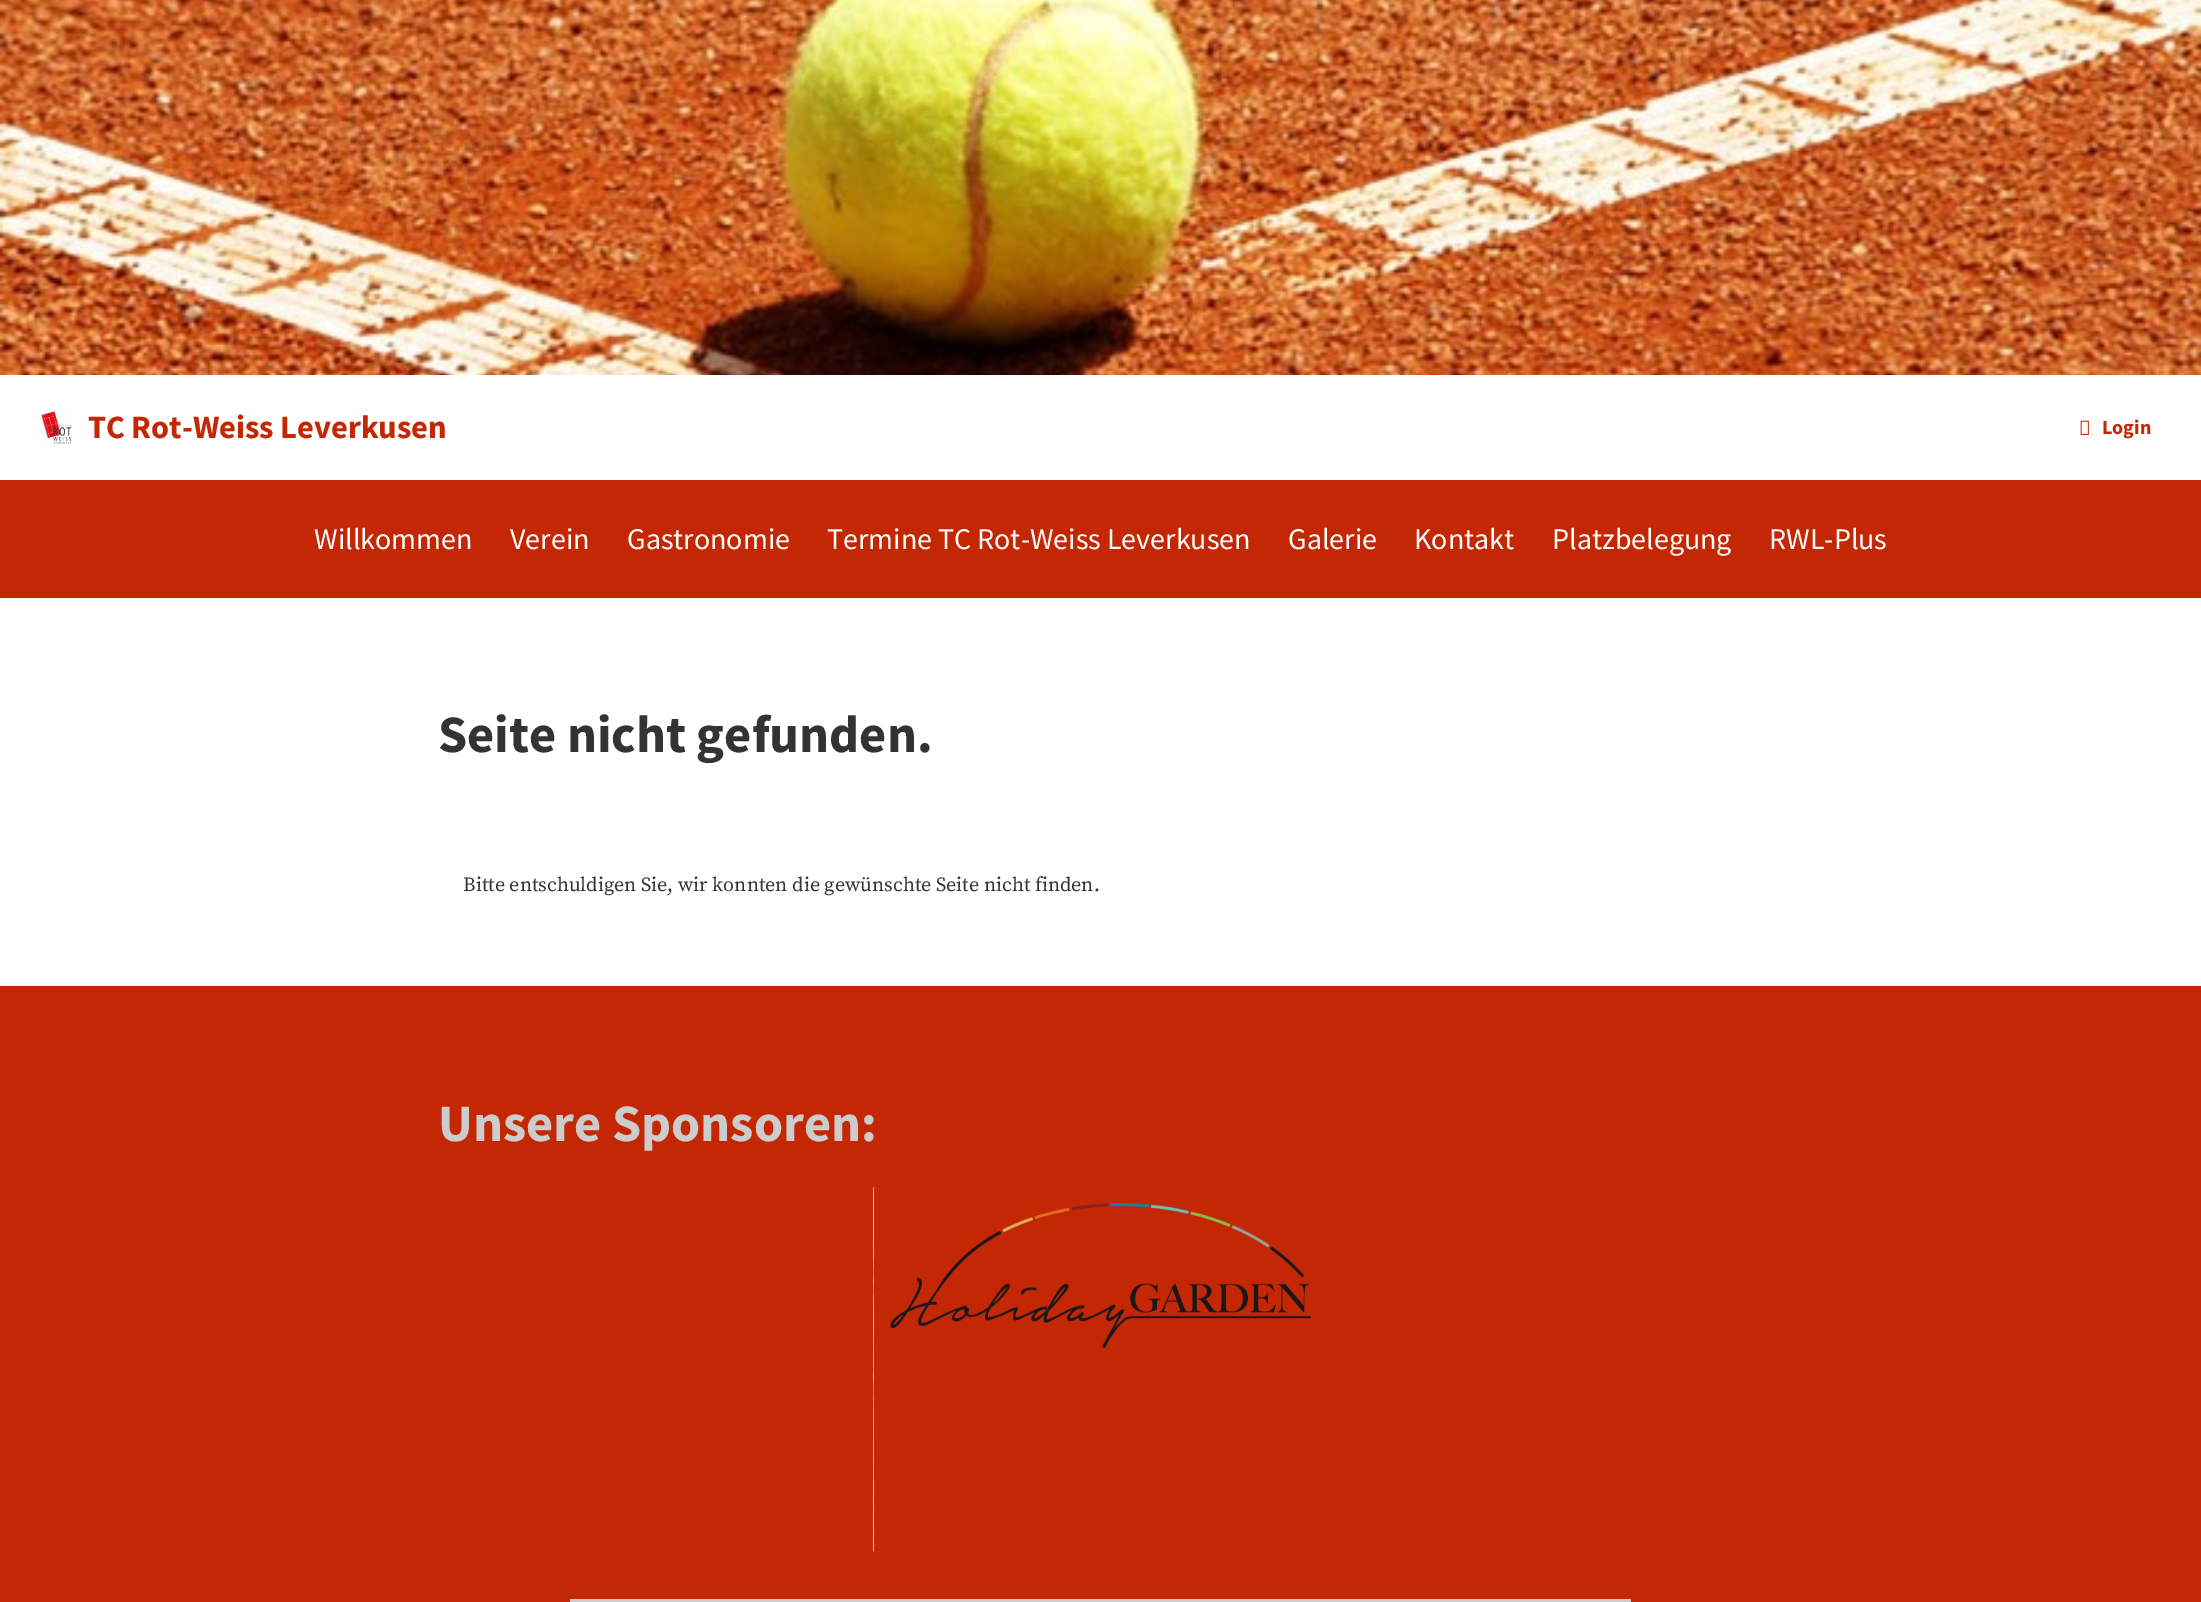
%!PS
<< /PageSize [2201 1602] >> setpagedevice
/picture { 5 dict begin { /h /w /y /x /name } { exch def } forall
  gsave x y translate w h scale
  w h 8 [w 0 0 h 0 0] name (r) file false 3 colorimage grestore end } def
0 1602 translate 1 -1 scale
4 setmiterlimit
1 setgray
0 0 2201 1602 rectfill
(img1.rgb) 0 0 2201 375 picture
(img2.rgb) 41 411 31 33 picture
/SourceSansPro-Bold [32.5 0 0 -32.5 0 0] selectfont
0.765 0.153 0.016 setrgbcolor
88 438 moveto (TC Rot-Weiss Leverkusen) show
(img3.rgb) 2080 420 9 15 picture
/SourceSansPro-Bold [20 0 0 -20 0 0] selectfont
2102 434 moveto (Login) show
0 480 2201 118 rectfill
/SourceSansPro-Regular [30 0 0 -30 0 0] selectfont
1 setgray
314 549 moveto (Willkommen) show
510 549 moveto (Verein) show
627 549 moveto (Gastronomie) show
827 549 moveto (Termine TC Rot-Weiss Leverkusen) show
1288 549 moveto (Galerie) show
1414 549 moveto (Kontakt) show
1552 549 moveto (Platzbelegung) show
1769 549 moveto (RWL-Plus) show
/SourceSansPro-Bold [52.5 0 0 -52.5 0 0] selectfont
0.2 setgray
438 752 moveto (Seite nicht gefunden.) show
/SourceSerifPro-Regular [20 0 0 -20 0 0] selectfont
463 891 moveto (Bitte entschuldigen Sie, wir konnten die gewünschte Seite nicht finden.) show
0.765 0.153 0.016 setrgbcolor
0 986 2201 616 rectfill
/SourceSansPro-Bold [52.5 0 0 -52.5 0 0] selectfont
0.8 setgray
438 1141 moveto (Unsere Sponsoren:) show
(img4.rgb) 873 1187 1 365 picture
(img5.rgb) 890 1203 421 145 picture
570 1599 1061 3 rectfill
showpage
